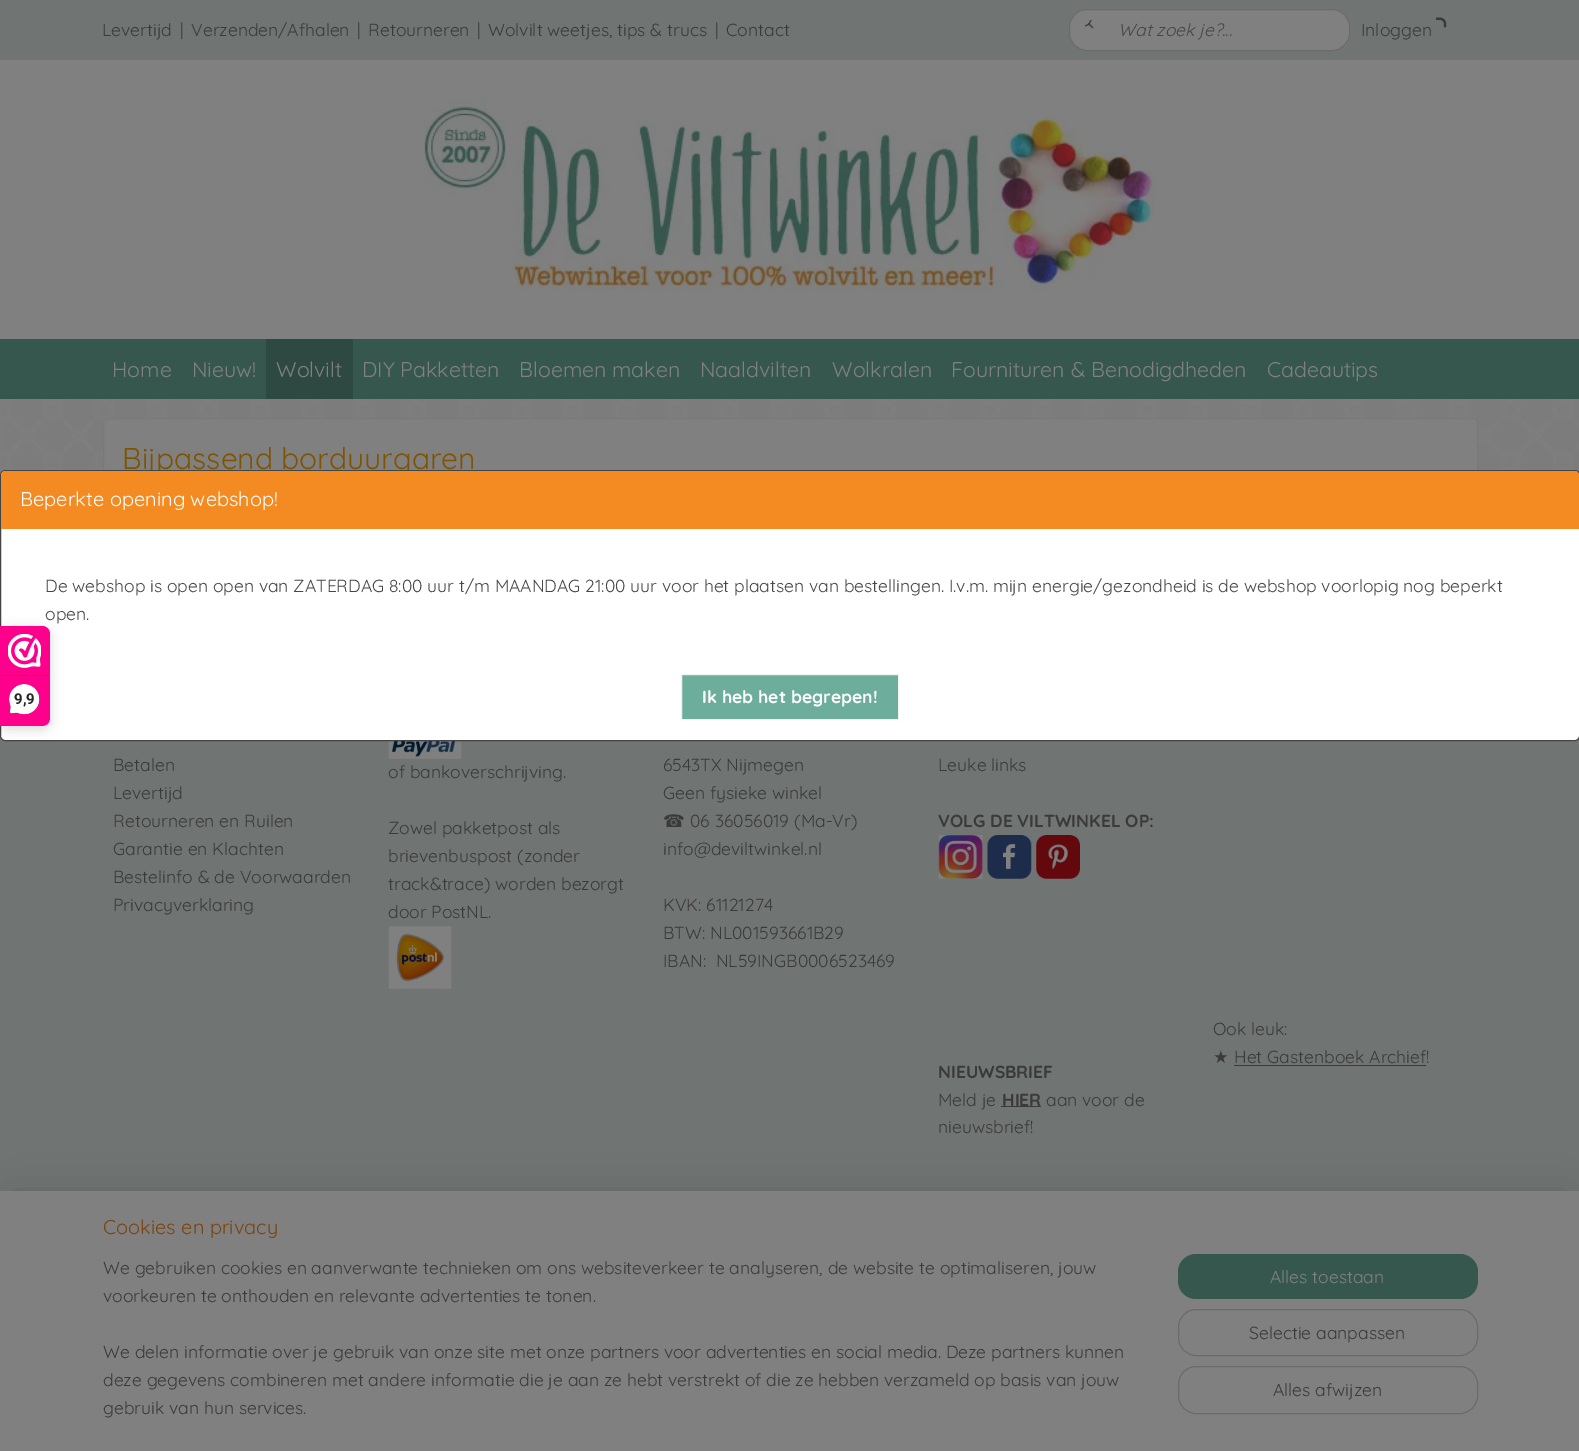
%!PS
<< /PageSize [1579 1451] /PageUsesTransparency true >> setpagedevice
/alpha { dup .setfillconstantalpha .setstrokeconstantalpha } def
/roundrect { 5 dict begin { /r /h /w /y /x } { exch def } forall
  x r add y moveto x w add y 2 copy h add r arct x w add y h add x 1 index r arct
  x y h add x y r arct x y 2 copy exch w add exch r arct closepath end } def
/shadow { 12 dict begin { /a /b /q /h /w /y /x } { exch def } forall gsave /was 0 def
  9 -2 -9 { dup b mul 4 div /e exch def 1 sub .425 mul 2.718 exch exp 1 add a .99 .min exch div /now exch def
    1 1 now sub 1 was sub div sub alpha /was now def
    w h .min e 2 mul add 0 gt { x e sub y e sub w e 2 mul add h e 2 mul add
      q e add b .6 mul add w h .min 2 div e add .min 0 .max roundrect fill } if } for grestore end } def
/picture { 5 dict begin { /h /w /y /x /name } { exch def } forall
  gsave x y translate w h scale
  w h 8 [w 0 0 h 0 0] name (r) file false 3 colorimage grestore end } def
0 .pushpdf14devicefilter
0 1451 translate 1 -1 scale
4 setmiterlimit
0.49 setgray
0 0 1579 1451 rectfill
0.502 setgray
0 60 1579 279 rectfill
0.439 0.455 0.451 setrgbcolor
0 0 1579 60 rectfill
/Quicksand-Regular [17.5 0 0 -17.5 0 0] selectfont
0.231 0.227 0.227 setrgbcolor
102 36 moveto (Levertijd) show
180 36 moveto (|) show
191 36 moveto (Verzenden/Afhalen) show
357 36 moveto (|) show
368 36 moveto (Retourneren) show
477 36 moveto (|) show
488 36 moveto (Wolvilt weetjes, tips & trucs) show
715 36 moveto (|) show
726 36 moveto (Contact) show
0.502 setgray
1069.5 9.5 280 41 17.5 roundrect gsave fill grestore
0.416 0.42 0.427 setrgbcolor
stroke
(img1.rgb) 1085 20 9 9 picture
/Quicksand-Italic [17.5 0 0 -17.5 0 0] selectfont
0.271 0.275 0.286 setrgbcolor
1118 36 moveto (Wat zoek je?...) show
/Quicksand-Regular [17.5 0 0 -17.5 0 0] selectfont
0.231 0.227 0.227 setrgbcolor
1361 36 moveto (Inloggen) show
(img2.rgb) 1436 17 11 11 picture
(img3.rgb) 424 100 731 191 picture
0.212 0.341 0.306 setrgbcolor
0 339 1579 60 rectfill
/Quicksand-Regular [21.25 0 0 -21.25 0 0] selectfont
0.502 setgray
112 377 moveto (Home) show
192 377 moveto (Nieuw!) show
0.18 0.286 0.255 setrgbcolor
266 339 87 60 rectfill
0.502 setgray
276 377 moveto (Wolvilt) show
362 377 moveto (DIY Pakketten) show
519 377 moveto (Bloemen maken) show
700 377 moveto (Naaldvilten) show
832 377 moveto (Wolkralen) show
951 377 moveto (Fournituren & Benodigdheden) show
1267 377 moveto (Cadeautips) show
(img4.rgb) 2 399 1577 72 picture
103.5 418.5 1374 135 4.5 roundrect gsave fill grestore
0.475 setgray
stroke
/Quicksand-Regular [30 0 0 -30 0 0] selectfont
0.502 0.325 0 setrgbcolor
122 469 moveto (Bijpassend borduurgaren) show
0.439 0.455 0.451 setrgbcolor
0 736 1579 455 rectfill
/Quicksand-Regular [17.5 0 0 -17.5 0 0] selectfont
0.231 0.227 0.227 setrgbcolor
113 771 moveto (Betalen) show
113 799 moveto (Levertijd) show
113 827 moveto (Retourneren en Ruilen) show
113 855 moveto (Garantie en Klachten) show
113 883 moveto (Bestelinfo & de Voorwaarden) show
113 911 moveto (Privacyverklaring) show
(img5.rgb) 388 741 74 18 picture
388 778 moveto (of bankoverschrijving.) show
388 834 moveto (Zowel pakketpost als) show
388 862 moveto (brievenbuspost \(zonder) show
388 890 moveto (track&trace\) worden bezorgt) show
388 918 moveto (door PostNL.) show
(img6.rgb) 388 926 64 63 picture
663 771 moveto (6543TX Nijmegen) show
663 799 moveto (Geen fysieke winkel) show
/DejaVuSans-Regular [17.5 0 0 -17.5 0 0] selectfont
663 827 moveto (☎) show
/Quicksand-Regular [17.5 0 0 -17.5 0 0] selectfont
690 827 moveto (06 36056019 \(Ma-Vr\)) show
663 855 moveto (info@deviltwinkel.nl) show
663 911 moveto (KVK: 61121274) show
663 939 moveto (BTW: NL001593661B29) show
663 967 moveto (IBAN:  NL59INGB0006523469) show
938 771 moveto (Leuke links) show
/Quicksand-Bold [17.5 0 0 -17.5 0 0] selectfont
938 827 moveto (VOLG DE VILTWINKEL OP:) show
(img7.rgb) 938 835 45 44 picture
(img8.rgb) 987 835 45 44 picture
(img9.rgb) 1036 835 44 44 picture
938 1078 moveto (NIEUWSBRIEF) show
/Quicksand-Regular [17.5 0 0 -17.5 0 0] selectfont
938 1106 moveto (Meld je) show
/Quicksand-Bold [17.5 0 0 -17.5 0 0] selectfont
1002 1106 moveto (HIER) show
1001 1106 40 1 rectfill
/Quicksand-Regular [17.5 0 0 -17.5 0 0] selectfont
1046 1106 moveto (aan voor de) show
938 1133 moveto (nieuwsbrief!) show
1213 1035 moveto (Ook leuk:) show
/DejaVuSans-Regular [17.5 0 0 -17.5 0 0] selectfont
1213 1063 moveto (★) show
/Quicksand-Regular [17.5 0 0 -17.5 0 0] selectfont
1234 1063 moveto (Het Gastenboek Archief!) show
1234 1065 192 1 rectfill
1 setgray
0.5 470.5 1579 270 4.5 roundrect gsave fill grestore
0.267 setgray
stroke
0.953 0.541 0.133 setrgbcolor
newpath 5 471 moveto 1575 471 lineto 1577 471 1579 473 1579 475 curveto 1579 529 lineto 1 529 lineto 1 475 lineto 1 473 3 471 5 471 curveto closepath fill
/Quicksand-Regular [20 0 0 -20 0 0] selectfont
1 setgray
20 506 moveto (Beperkte opening webshop!) show
/Quicksand-Regular [17.5 0 0 -17.5 0 0] selectfont
0.271 0.275 0.286 setrgbcolor
45 592 moveto (De webshop is open open van ZATERDAG 8:00 uur t/m MAANDAG 21:00 uur voor het plaatsen van bestellingen. I.v.m. mijn energie/gezondheid is de webshop voorlopig nog beperkt) show
45 620 moveto (open.) show
0.424 0.678 0.608 setrgbcolor
newpath 681.5 674.5 moveto 898.5 674.5 lineto 898.5 719.5 lineto 681.5 719.5 lineto closepath gsave fill grestore
0.949 setgray
stroke
/Quicksand-Bold [17.5 0 0 -17.5 0 0] selectfont
1 setgray
702 703 moveto (Ik heb het begrepen!) show
0 setgray
0 629 50 100 8 6 0.15 shadow
0.996 0 0.549 setrgbcolor
newpath 0 626 moveto 42 626 lineto 46.5 626 50 629.5 50 634 curveto 50 718 lineto 50 722.5 46.5 726 42 726 curveto 0 726 lineto closepath fill
(img10.rgb) 8 634 33 34 picture
0.847 0 0.467 setrgbcolor
0 675 49 1 rectfill
(img11.rgb) 9 684 31 31 picture
/Roboto-Bold [15 0 0 -15 0 0] selectfont
0.153 0.149 0.149 setrgbcolor
14 704 moveto (9,9) show
0 setgray
13 1204 1555 235 0 22.5 0.2 shadow
0.502 setgray
0 1191 1579 260 rectfill
/Quicksand-Regular [20 0 0 -20 0 0] selectfont
0.478 0.271 0.067 setrgbcolor
103 1234 moveto (Cookies en privacy) show
/Quicksand-Regular [17.5 0 0 -17.5 0 0] selectfont
0.231 0.227 0.227 setrgbcolor
103 1274 moveto (We gebruiken cookies en aanverwante technieken om ons websiteverkeer te analyseren, de website te optimaliseren, jouw) show
103 1302 moveto (voorkeuren te onthouden en relevante advertenties te tonen.) show
103 1358 moveto (We delen informatie over je gebruik van onze site met onze partners voor advertenties en social media. Deze partners kunnen) show
103 1386 moveto (deze gegevens combineren met andere informatie die je aan ze hebt verstrekt of die ze hebben verzameld op basis van jouw) show
103 1414 moveto (gebruik van hun services.) show
0.212 0.341 0.306 setrgbcolor
1178 1254 300 45 18 roundrect fill
0.502 setgray
1270 1283 moveto (Alles toestaan) show
0.42 setgray
1178.5 1309.5 299 46 17.5 roundrect stroke
0.231 0.227 0.227 setrgbcolor
1249 1339 moveto (Selectie aanpassen) show
0.42 setgray
1178.5 1366.5 299 47 17.5 roundrect stroke
0.231 0.227 0.227 setrgbcolor
1273 1396 moveto (Alles afwijzen) show
.poppdf14devicefilter showpage
